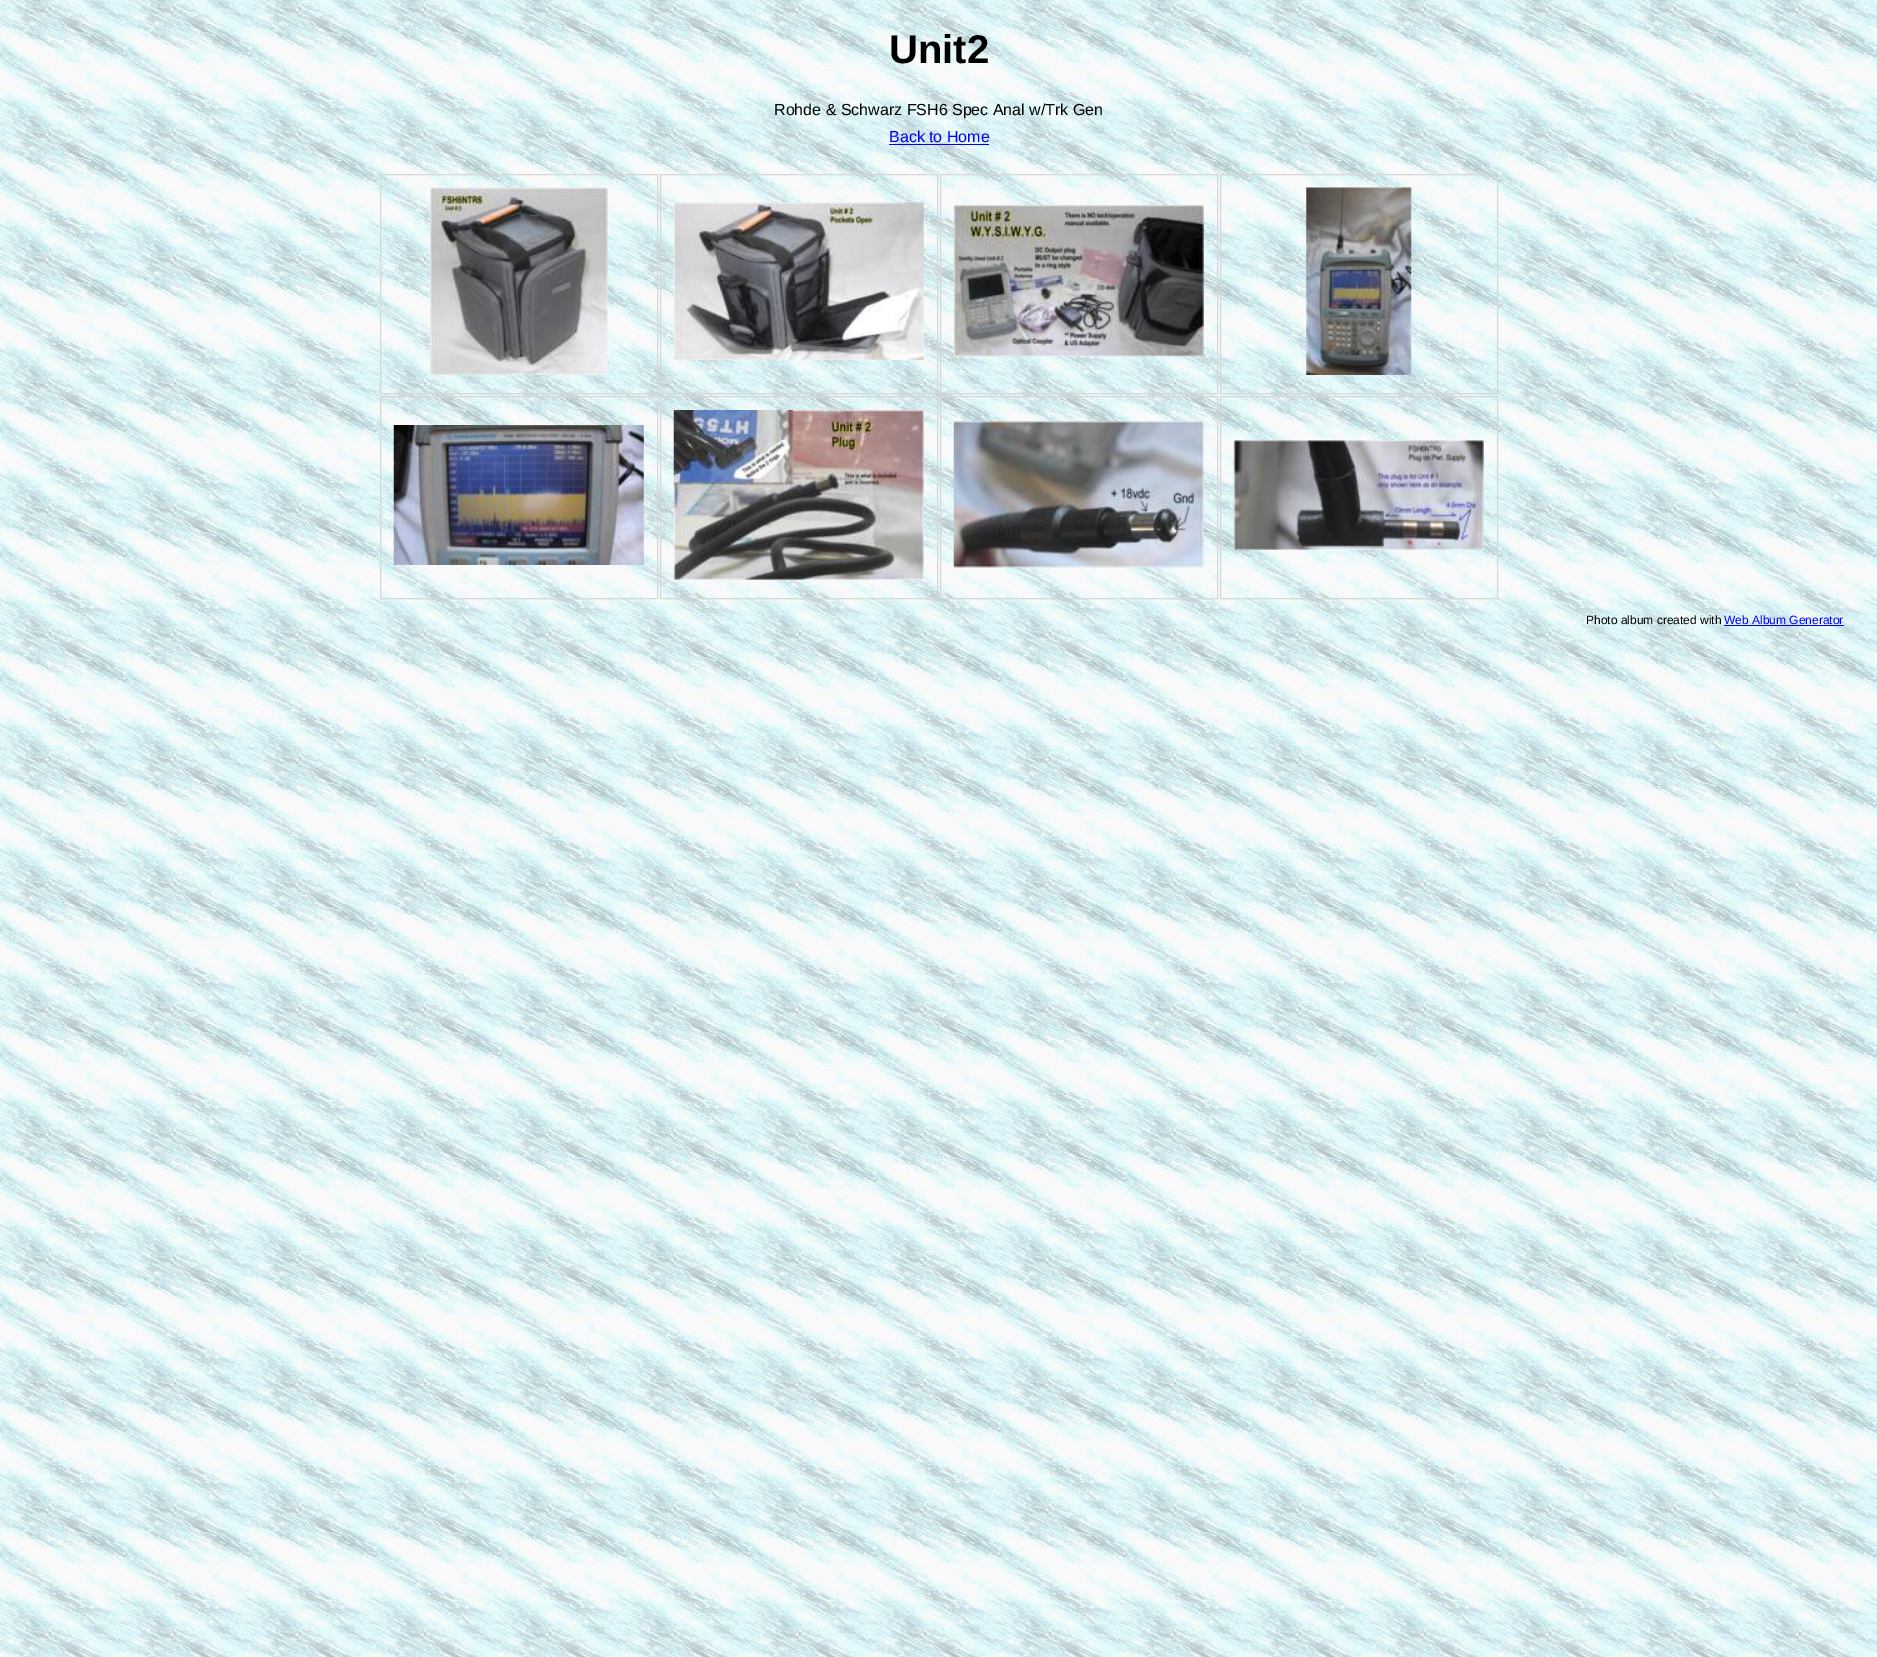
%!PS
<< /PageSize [1877 1657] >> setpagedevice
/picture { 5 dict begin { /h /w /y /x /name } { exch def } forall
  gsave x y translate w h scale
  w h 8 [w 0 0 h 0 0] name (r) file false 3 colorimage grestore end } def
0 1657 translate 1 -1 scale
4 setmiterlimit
1 setgray
0 0 1877 1657 rectfill
(img1.rgb) 0 0 1877 1657 picture
/LiberationSans-Bold [40 0 0 -40 0 0] selectfont
0 setgray
889 63 moveto (Unit2) show
/LiberationSans-Regular [16 0 0 -16 0 0] selectfont
774 115 moveto (Rohde & Schwarz FSH6 Spec Anal w/Trk Gen) show
0 0 1 setrgbcolor
889 142 moveto (Back to Home) show
889 144 100 1 rectfill
0.843 setgray
380.5 174.5 277 219 rectstroke
(img2.rgb) 430 187 178 188 picture
660.5 174.5 277 219 rectstroke
(img3.rgb) 673 202 251 158 picture
940.5 174.5 277 219 rectstroke
(img4.rgb) 953 205 251 152 picture
1220.5 174.5 277 219 rectstroke
(img5.rgb) 1306 187 106 188 picture
380.5 396.5 277 202 rectstroke
(img6.rgb) 393 425 251 140 picture
660.5 396.5 277 202 rectstroke
(img7.rgb) 673 410 251 170 picture
940.5 396.5 277 202 rectstroke
(img8.rgb) 953 421 251 147 picture
1220.5 396.5 277 202 rectstroke
(img9.rgb) 1233 440 251 110 picture
/LiberationSans-Regular [12 0 0 -12 0 0] selectfont
0 setgray
1586 624 moveto (Photo album created with) show
0 0 1 setrgbcolor
1724 624 moveto (Web Album Generator) show
1724 625 120 1 rectfill
showpage
